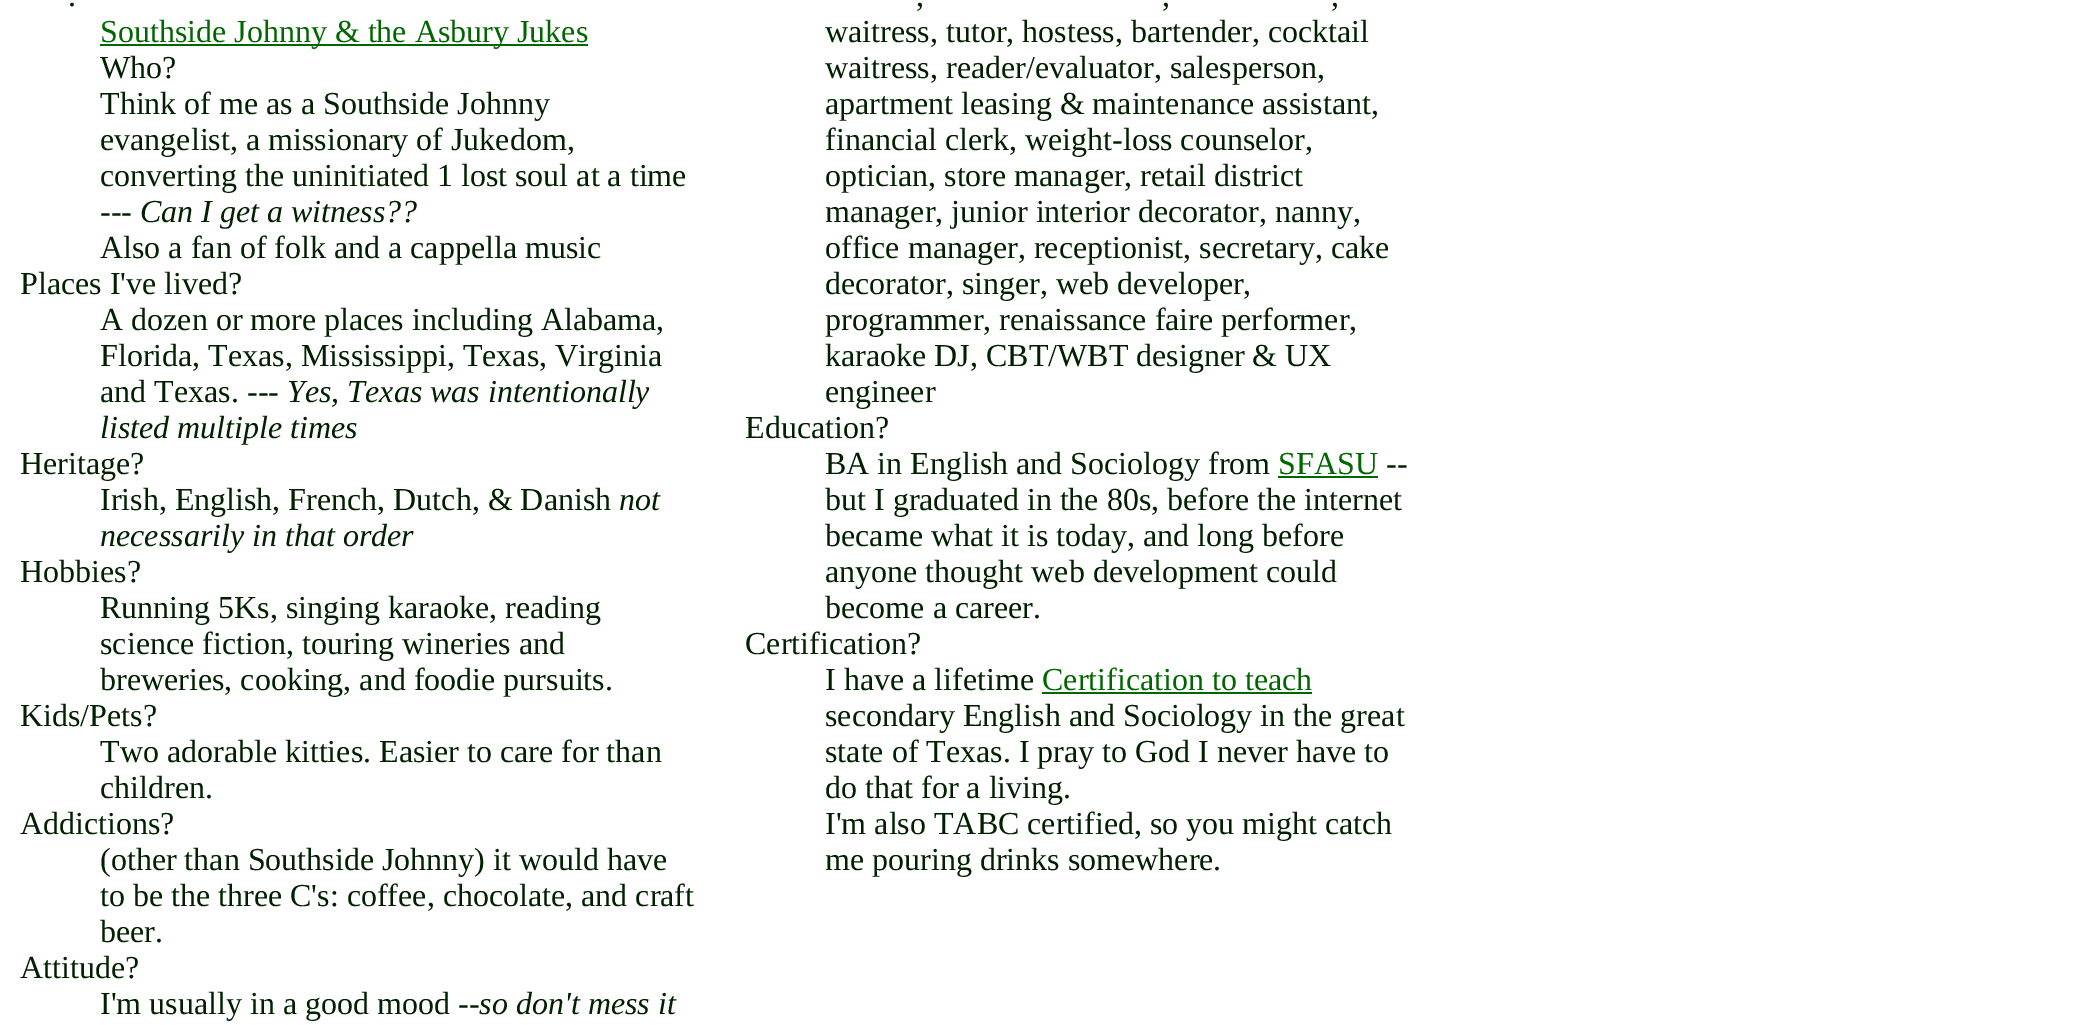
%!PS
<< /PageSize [2085 1025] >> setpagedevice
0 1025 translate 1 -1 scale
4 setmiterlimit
1 setgray
0 0 2085 1025 rectfill
/LiberationSerif-Regular [32 0 0 -32 0 0] selectfont
0 0.125 0 setrgbcolor
68 6 moveto (.) show
0 0.4 0 setrgbcolor
100 44 488 2 rectfill
100 42 moveto (Southside Johnny & the Asbury Jukes) show
0 0.125 0 setrgbcolor
100 78 moveto (Who?) show
100 114 moveto (Think of me as a Southside Johnny) show
100 150 moveto (evangelist, a missionary of Jukedom,) show
100 186 moveto (converting the uninitiated 1 lost soul at a time) show
/LiberationSerif-Italic [32 0 0 -32 0 0] selectfont
100 222 moveto (--- Can I get a witness??) show
/LiberationSerif-Regular [32 0 0 -32 0 0] selectfont
100 258 moveto (Also a fan of folk and a cappella music) show
20 294 moveto (Places I've lived?) show
100 330 moveto (A dozen or more places including Alabama,) show
100 366 moveto (Florida, Texas, Mississippi, Texas, Virginia) show
100 402 moveto (and Texas.) show
/LiberationSerif-Italic [32 0 0 -32 0 0] selectfont
247 402 moveto (--- Yes, Texas was intentionally) show
100 438 moveto (listed multiple times) show
/LiberationSerif-Regular [32 0 0 -32 0 0] selectfont
20 474 moveto (Heritage?) show
100 510 moveto (Irish, English, French, Dutch, & Danish) show
/LiberationSerif-Italic [32 0 0 -32 0 0] selectfont
619 510 moveto (not) show
100 546 moveto (necessarily in that order) show
/LiberationSerif-Regular [32 0 0 -32 0 0] selectfont
20 582 moveto (Hobbies?) show
100 618 moveto (Running 5Ks, singing karaoke, reading) show
100 654 moveto (science fiction, touring wineries and) show
100 690 moveto (breweries, cooking, and foodie pursuits.) show
20 726 moveto (Kids/Pets?) show
100 762 moveto (Two adorable kitties. Easier to care for than) show
100 798 moveto (children.) show
20 834 moveto (Addictions?) show
100 870 moveto (\(other than Southside Johnny\) it would have) show
100 906 moveto (to be the three C's: coffee, chocolate, and craft) show
100 942 moveto (beer.) show
20 978 moveto (Attitude?) show
100 1014 moveto (I'm usually in a good mood) show
/LiberationSerif-Italic [32 0 0 -32 0 0] selectfont
458 1014 moveto (--so don't mess it) show
/LiberationSerif-Regular [32 0 0 -32 0 0] selectfont
916 6 moveto (,) show
1162 6 moveto (,) show
1331 6 moveto (,) show
825 42 moveto (waitress, tutor, hostess, bartender, cocktail) show
825 78 moveto (waitress, reader/evaluator, salesperson,) show
825 114 moveto (apartment leasing & maintenance assistant,) show
825 150 moveto (financial clerk, weight-loss counselor,) show
825 186 moveto (optician, store manager, retail district) show
825 222 moveto (manager, junior interior decorator, nanny,) show
825 258 moveto (office manager, receptionist, secretary, cake) show
825 294 moveto (decorator, singer, web developer,) show
825 330 moveto (programmer, renaissance faire performer,) show
825 366 moveto (karaoke DJ, CBT/WBT designer & UX) show
825 402 moveto (engineer) show
745 438 moveto (Education?) show
825 474 moveto (BA in English and Sociology from) show
0 0.4 0 setrgbcolor
1278 474 moveto (SFASU) show
1278 476 100 2 rectfill
0 0.125 0 setrgbcolor
1386 474 moveto (--) show
825 510 moveto (but I graduated in the 80s, before the internet) show
825 546 moveto (became what it is today, and long before) show
825 582 moveto (anyone thought web development could) show
825 618 moveto (become a career.) show
745 654 moveto (Certification?) show
825 690 moveto (I have a lifetime) show
0 0.4 0 setrgbcolor
1042 690 moveto (Certification to teach) show
1042 692 270 2 rectfill
0 0.125 0 setrgbcolor
825 726 moveto (secondary English and Sociology in the great) show
825 762 moveto (state of Texas. I pray to God I never have to) show
825 798 moveto (do that for a living.) show
825 834 moveto (I'm also TABC certified, so you might catch) show
825 870 moveto (me pouring drinks somewhere.) show
showpage
